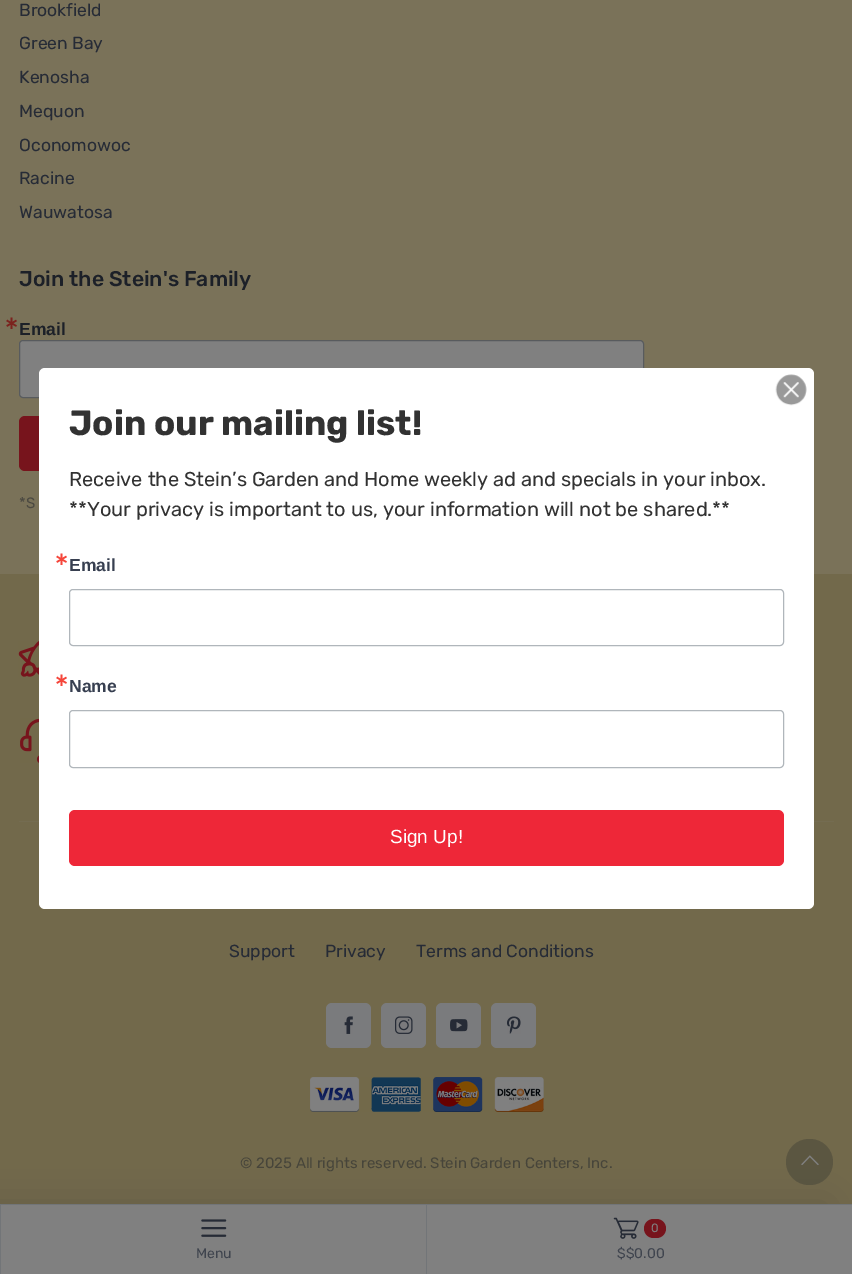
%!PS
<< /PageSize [852 1274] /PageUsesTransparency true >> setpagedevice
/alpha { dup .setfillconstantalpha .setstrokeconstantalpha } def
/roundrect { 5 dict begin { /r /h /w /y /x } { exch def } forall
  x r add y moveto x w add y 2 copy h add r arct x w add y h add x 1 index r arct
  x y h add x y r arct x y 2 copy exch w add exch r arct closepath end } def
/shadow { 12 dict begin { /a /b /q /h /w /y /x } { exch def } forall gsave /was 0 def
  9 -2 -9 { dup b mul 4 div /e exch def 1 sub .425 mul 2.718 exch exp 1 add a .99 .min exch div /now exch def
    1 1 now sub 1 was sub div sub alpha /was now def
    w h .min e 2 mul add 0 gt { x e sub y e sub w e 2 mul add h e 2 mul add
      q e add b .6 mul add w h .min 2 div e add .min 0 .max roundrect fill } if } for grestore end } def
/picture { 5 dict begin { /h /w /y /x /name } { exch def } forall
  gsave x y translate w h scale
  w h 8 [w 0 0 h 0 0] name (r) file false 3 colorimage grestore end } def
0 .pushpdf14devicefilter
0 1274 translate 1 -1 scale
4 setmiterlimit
0.478 0.447 0.349 setrgbcolor
0 0 852 1274 rectfill
/Rubik-Regular [17.5 0 0 -17.5 0 0] selectfont
0.149 0.169 0.212 setrgbcolor
19 16 moveto (Brookfield) show
19 49 moveto (Green Bay) show
19 83 moveto (Kenosha) show
19 117 moveto (Mequon) show
19 151 moveto (Oconomowoc) show
19 184 moveto (Racine) show
19 218 moveto (Wauwatosa) show
/Rubik-Medium [21.25 0 0 -21.25 0 0] selectfont
0.11 0.125 0.157 setrgbcolor
19 286 moveto (Join the Stein's Family) show
/DejaVuSans-Bold [17.5 0 0 -17.5 0 0] selectfont
0.482 0.137 0.118 setrgbcolor
4 329 moveto (∗) show
/LiberationSans-Bold [17.5 0 0 -17.5 0 0] selectfont
0.11 0.125 0.157 setrgbcolor
19 335 moveto (Email) show
0.502 setgray
19.5 340.5 624 57 3.5 roundrect gsave fill grestore
0.345 0.357 0.369 setrgbcolor
stroke
0.467 0.078 0.11 setrgbcolor
19 416 625 55 6 roundrect fill
/Rubik-Regular [15 0 0 -15 0 0] selectfont
0.294 0.286 0.255 setrgbcolor
19 508 moveto (*S) show
0.447 0.412 0.294 setrgbcolor
0 574 852 630 rectfill
(img1.rgb) 18 641 21 36 picture
(img2.rgb) 20 718 19 45 picture
0.455 0.424 0.318 setrgbcolor
19 821 815 1 rectfill
/Rubik-Regular [17.5 0 0 -17.5 0 0] selectfont
0.149 0.169 0.212 setrgbcolor
229 957 moveto (Support) show
325 957 moveto (Privacy) show
416 957 moveto (Terms and Conditions) show
0.478 0.482 0.49 setrgbcolor
326 1003 45 45 6 roundrect fill
(img3.rgb) 344 1016 9 18 picture
381 1003 45 45 6 roundrect fill
(img4.rgb) 395 1016 18 18 picture
436 1003 45 45 6 roundrect fill
(img5.rgb) 450 1019 18 13 picture
491 1003 45 45 6 roundrect fill
(img6.rgb) 507 1016 14 18 picture
(img7.rgb) 310 1077 234 35 picture
/Rubik-Regular [15 0 0 -15 0 0] selectfont
0.278 0.271 0.227 setrgbcolor
240 1168 moveto (© 2025 All rights reserved. Stein Garden Centers, Inc.) show
1 setgray
39 368 775 541 6 roundrect fill
(img8.rgb) 775 374 32 32 picture
/Rubik-Bold [35 0 0 -35 0 0] selectfont
0.196 setgray
69 435 moveto (Join our mailing list!) show
/Rubik-Regular [20 0 0 -20 0 0] selectfont
69 486 moveto (Receive the Stein’s Garden and Home weekly ad and specials in your inbox.) show
69 516 moveto (**Your privacy is important to us, your information will not be shared.**) show
/DejaVuSans-Bold [17.5 0 0 -17.5 0 0] selectfont
0.961 0.275 0.231 setrgbcolor
54 565 moveto (∗) show
/LiberationSans-Bold [17.5 0 0 -17.5 0 0] selectfont
0.216 0.247 0.314 setrgbcolor
69 571 moveto (Email) show
0.69 0.714 0.733 setrgbcolor
69.5 589.5 714 56 3.5 roundrect stroke
/DejaVuSans-Bold [17.5 0 0 -17.5 0 0] selectfont
0.961 0.275 0.231 setrgbcolor
54 686 moveto (∗) show
/LiberationSans-Bold [17.5 0 0 -17.5 0 0] selectfont
0.216 0.247 0.314 setrgbcolor
69 692 moveto (Name) show
0.69 0.714 0.733 setrgbcolor
69.5 710.5 714 57 3.5 roundrect stroke
0.933 0.153 0.22 setrgbcolor
69 810 715 56 6 roundrect fill
/LiberationSans-Regular [19 0 0 -19 0 0] selectfont
1 setgray
390 843 moveto (Sign Up!) show
0.357 0.337 0.255 setrgbcolor
786 1139 47 46 23 roundrect fill
(img9.rgb) 801 1155 18 10 picture
0.086 0.102 0.137 setrgbcolor
-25 1204 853 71 0 20 0.15 shadow
0.502 setgray
1 1205 851 69 rectfill
0.447 0.459 0.471 setrgbcolor
0 1204 852 1 rectfill
0 1205 1 69 rectfill
(img10.rgb) 201 1219 26 18 picture
/Rubik-Regular [14 0 0 -14 0 0] selectfont
0.247 0.267 0.306 setrgbcolor
196 1258 moveto (Menu) show
0.447 0.459 0.471 setrgbcolor
426 1205 1 69 rectfill
(img11.rgb) 613 1217 26 22 picture
0.467 0.078 0.11 setrgbcolor
644 1219 22 19 9.5 roundrect fill
/Rubik-Regular [12 0 0 -12 0 0] selectfont
0.502 setgray
651 1232 moveto (0) show
/Rubik-Regular [14 0 0 -14 0 0] selectfont
0.247 0.267 0.306 setrgbcolor
617 1258 moveto ($$0.00) show
.poppdf14devicefilter showpage
